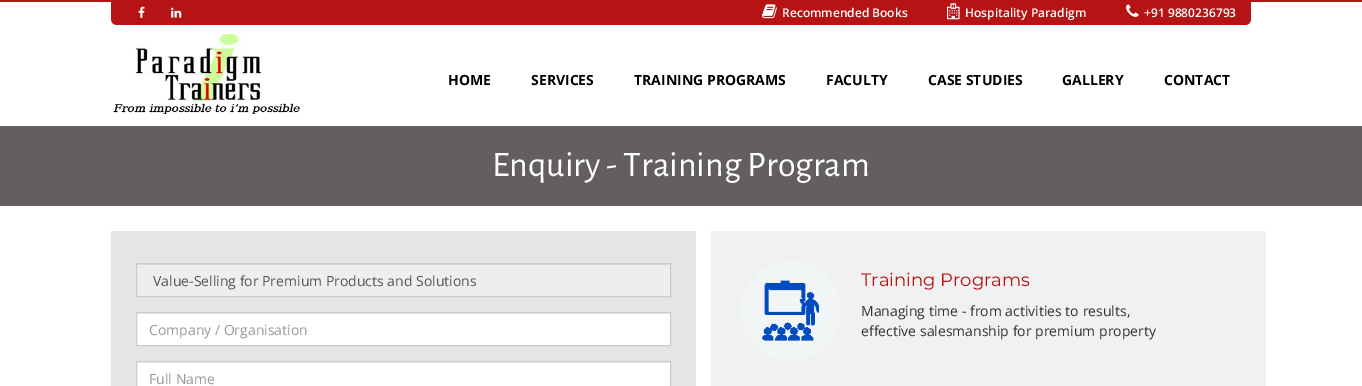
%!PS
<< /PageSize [1362 386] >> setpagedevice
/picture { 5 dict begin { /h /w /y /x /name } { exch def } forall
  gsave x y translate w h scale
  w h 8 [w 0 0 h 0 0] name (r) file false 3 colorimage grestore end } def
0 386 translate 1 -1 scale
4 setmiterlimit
1 setgray
0 0 1362 386 rectfill
0.714 0.078 0.078 setrgbcolor
0 0 1362 2 rectfill
newpath 111 2 moveto 1251 2 lineto 1251 19 lineto 1251 22.5 1248.5 25 1245 25 curveto 117 25 lineto 113.5 25 111 22.5 111 19 curveto closepath fill
(img1.rgb) 138 6 7 12 picture
(img2.rgb) 171 7 11 11 picture
(img3.rgb) 762 4 15 15 picture
/OpenSans-SemiBold [12 0 0 -12 0 0] selectfont
1 setgray
782 17 moveto (Recommended Books) show
(img4.rgb) 947 3 13 17 picture
965 17 moveto (Hospitality Paradigm) show
(img5.rgb) 1126 4 13 13 picture
1144 17 moveto (+91 9880236793) show
(img6.rgb) 113 32 187 82 picture
/OpenSans-Bold [14 0 0 -14 0 0] selectfont
0 setgray
448 85 moveto (HOME) show
531 85 moveto (SERVICES) show
634 85 moveto (TRAINING PROGRAMS) show
826 85 moveto (FACULTY) show
928 85 moveto (CASE STUDIES) show
1062 85 moveto (GALLERY) show
1164 85 moveto (CONTACT) show
0.388 0.373 0.369 setrgbcolor
0 126 1362 80 rectfill
/AlegreyaSans-Regular [36 0 0 -36 0 0] selectfont
1 setgray
492 176 moveto (Enquiry - Training Program) show
0.898 setgray
111 231 585 155 rectfill
0.933 setgray
137 265 533 31 rectfill
0.863 setgray
137 264 533 1 rectfill
0.8 setgray
136.5 263.5 534 33 rectstroke
/OpenSans-Regular [14 0 0 -14 0 0] selectfont
0.333 setgray
153 286 moveto (Value-Selling for Premium Products and Solutions) show
1 setgray
137 314 533 31 rectfill
0.925 setgray
137 313 533 1 rectfill
0.8 setgray
136.5 312.5 534 33 rectstroke
0.6 setgray
149 335 moveto (Company / Organisation) show
1 setgray
137 363 533 23 rectfill
0.925 setgray
137 362 533 1 rectfill
0.8 setgray
136.5 361.5 534 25 rectstroke
0.6 setgray
149 384 moveto (Full Name) show
0.945 setgray
711 231 555 155 rectfill
0.949 0.961 0.965 setrgbcolor
newpath 791 311 50 0 360 arc closepath fill
(img7.rgb) 762 280 57 61 picture
/Montserrat-Regular [18 0 0 -18 0 0] selectfont
0.714 0.078 0.078 setrgbcolor
861 286 moveto (Training Programs) show
/OpenSans-Regular [14 0 0 -14 0 0] selectfont
0.2 setgray
861 316 moveto (Managing time - from activities to results,) show
861 336 moveto (effective salesmanship for premium property) show
showpage
